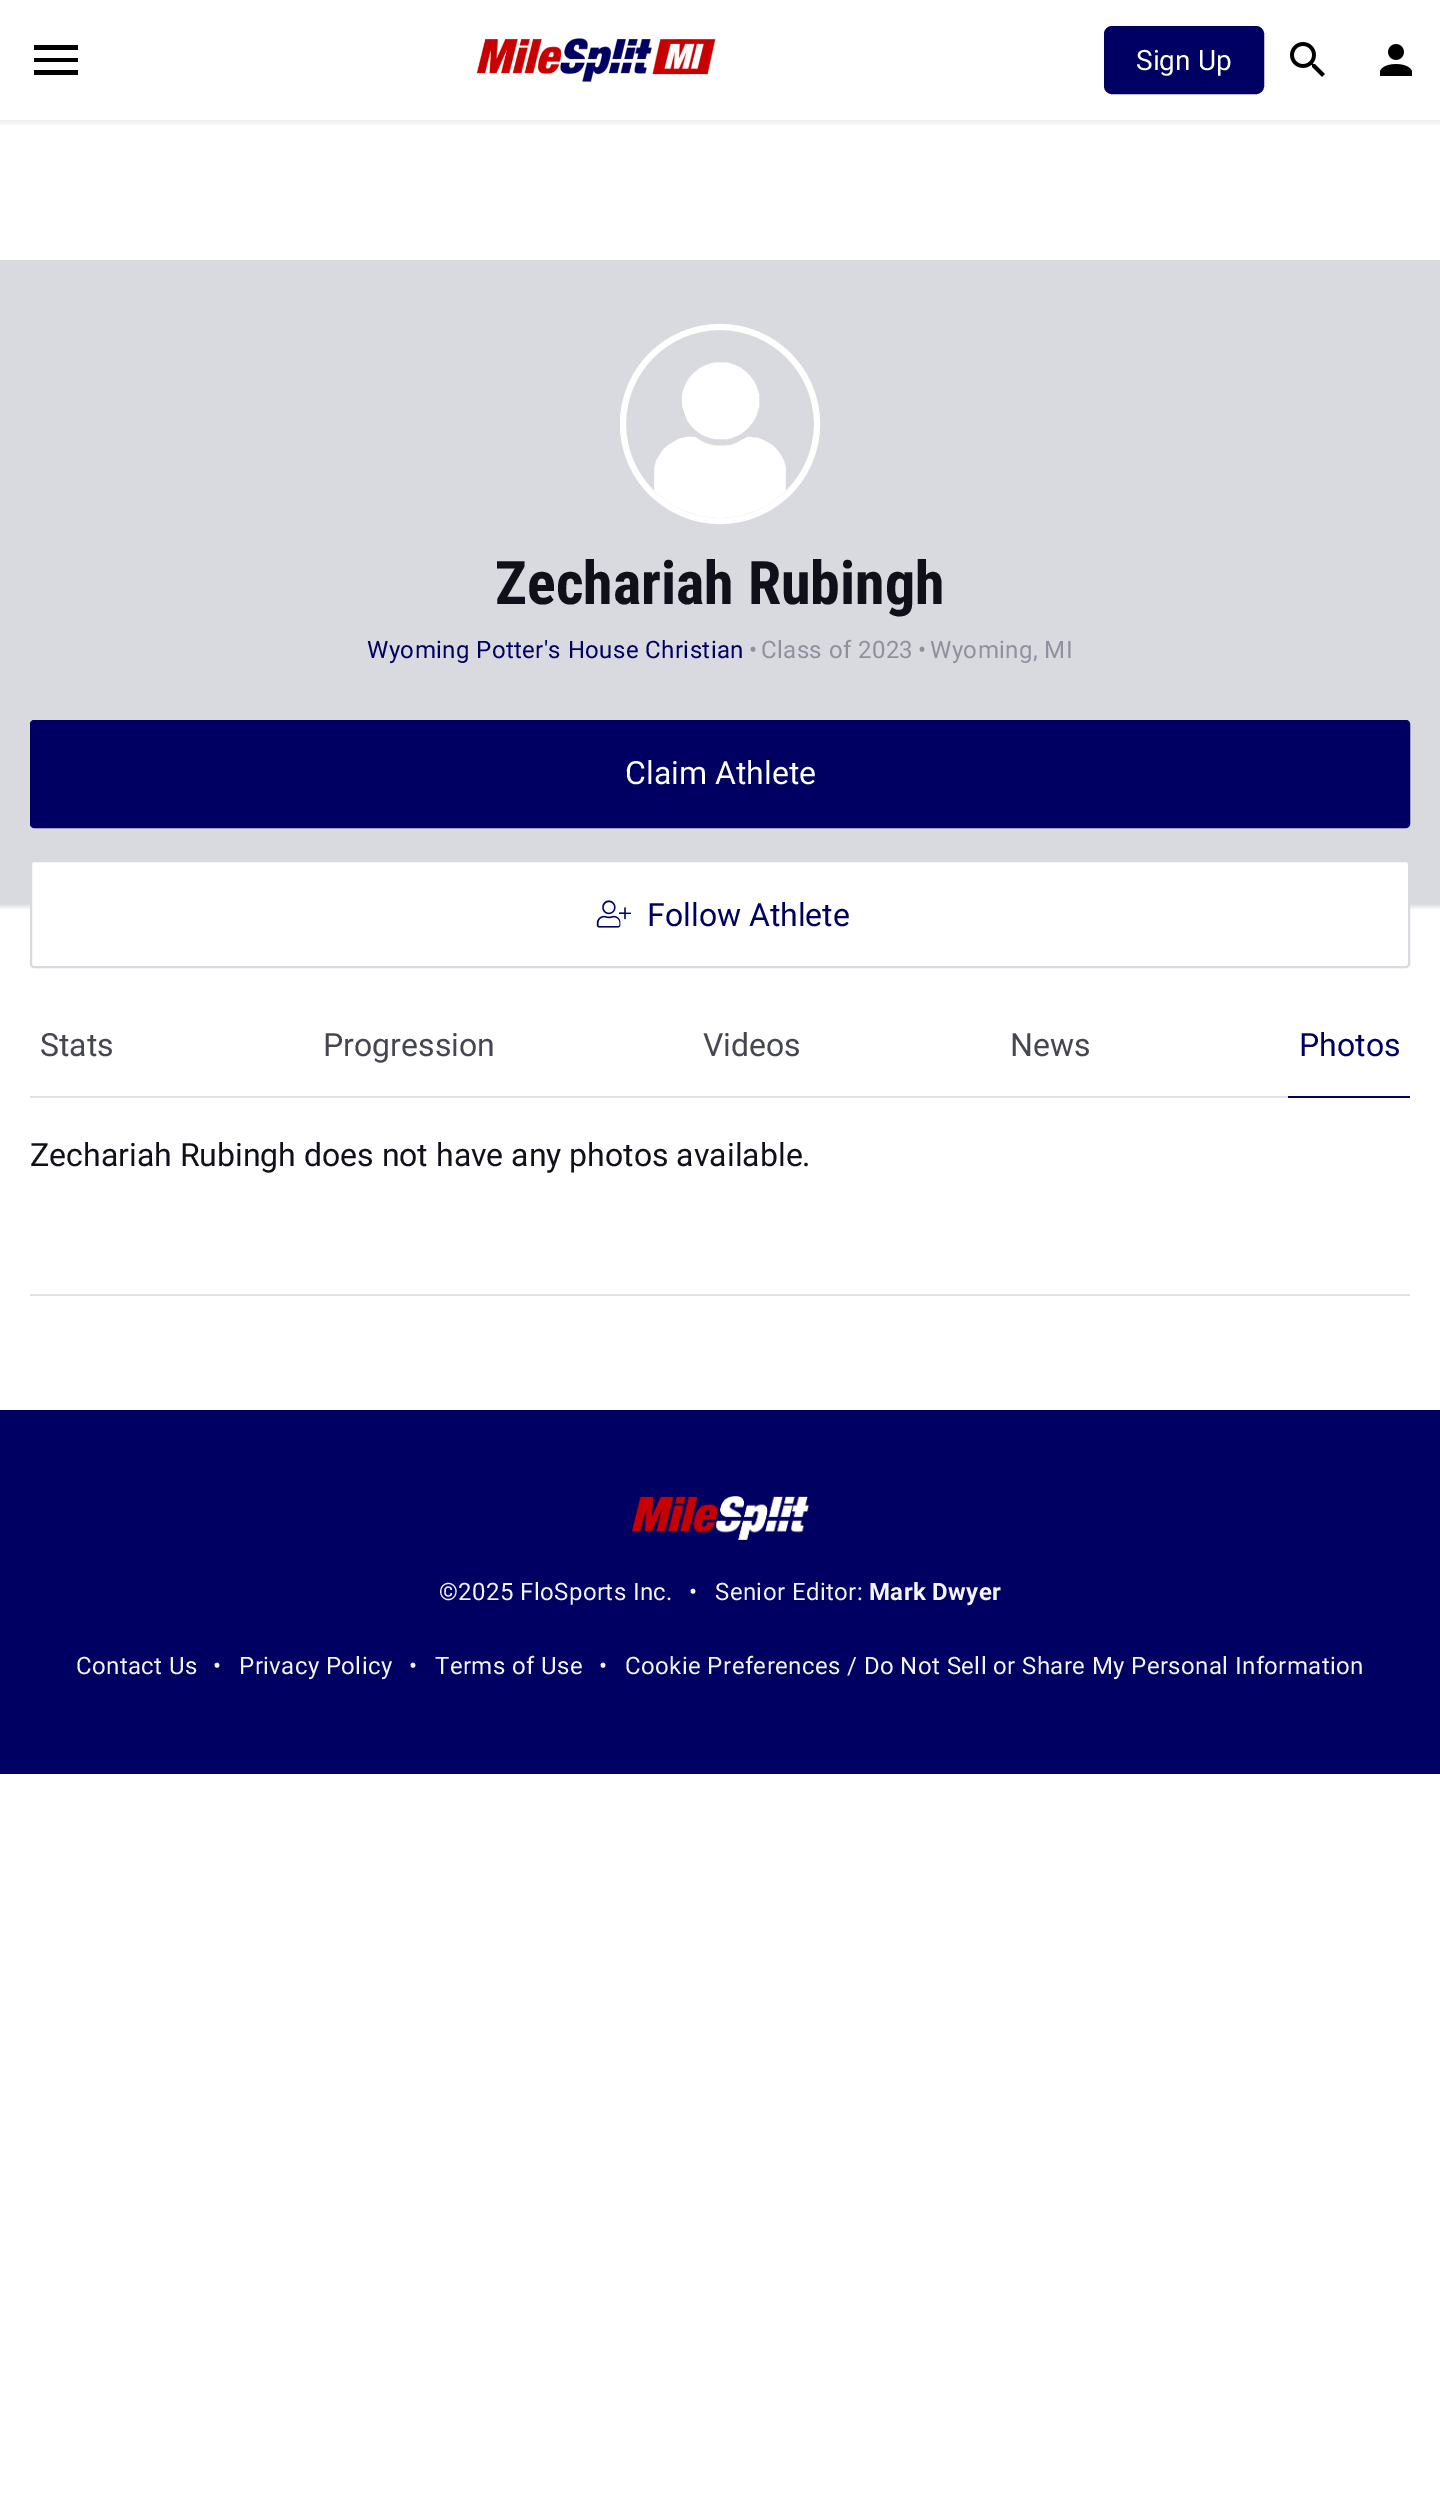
%!PS
<< /PageSize [1440 2505] /PageUsesTransparency true >> setpagedevice
/alpha { dup .setfillconstantalpha .setstrokeconstantalpha } def
/roundrect { 5 dict begin { /r /h /w /y /x } { exch def } forall
  x r add y moveto x w add y 2 copy h add r arct x w add y h add x 1 index r arct
  x y h add x y r arct x y 2 copy exch w add exch r arct closepath end } def
/shadow { 12 dict begin { /a /b /q /h /w /y /x } { exch def } forall gsave /was 0 def
  9 -2 -9 { dup b mul 4 div /e exch def 1 sub .425 mul 2.718 exch exp 1 add a .99 .min exch div /now exch def
    1 1 now sub 1 was sub div sub alpha /was now def
    w h .min e 2 mul add 0 gt { x e sub y e sub w e 2 mul add h e 2 mul add
      q e add b .6 mul add w h .min 2 div e add .min 0 .max roundrect fill } if } for grestore end } def
/picture { 5 dict begin { /h /w /y /x /name } { exch def } forall
  gsave x y translate w h scale
  w h 8 [w 0 0 h 0 0] name (r) file false 3 colorimage grestore end } def
0 .pushpdf14devicefilter
0 2505 translate 1 -1 scale
4 setmiterlimit
1 setgray
0 0 1440 2505 rectfill
gsave
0 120 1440 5 rectclip
0 setgray
0 2 1440 120 0 4 0.1 shadow
grestore
0 setgray
newpath 34 45 moveto 78 45 lineto 78 50 lineto 34 50 lineto 34 45 lineto 34 58 moveto 78 58 lineto 78 62 lineto 34 62 lineto 34 58 lineto 34 70 moveto 78 70 lineto 78 75 lineto 34 75 lineto closepath fill
(img1.rgb) 476 38 240 44 picture
0 0 0.384 setrgbcolor
1105 27 158 66 7 roundrect gsave fill grestore
2 setlinewidth
stroke
/Roboto-Regular [28 0 0 -28 0 0] selectfont
1 setgray
1136 70 moveto (Sign Up) show
(img2.rgb) 1290 42 35 35 picture
(img3.rgb) 1380 44 32 32 picture
0.851 0.855 0.878 setrgbcolor
0 260 1440 64 rectfill
gsave newpath 0 324 moveto 1440 324 lineto 1440 910 lineto 0 910 lineto closepath clip newpath
<< /ShadingType 2 /ColorSpace /DeviceRGB /Coords [720 324 720 968] /Extend [true true] /Function << /FunctionType 3 /Domain [0 1] /Functions [<< /FunctionType 2 /Domain [0 1] /C0 [0.851 0.855 0.878] /C1 [0.851 0.855 0.878] /N 1 >> << /FunctionType 2 /Domain [0 1] /C0 [0.851 0.855 0.878] /C1 [1 1 1] /N 1 >> << /FunctionType 2 /Domain [0 1] /C0 [1 1 1] /C1 [1 1 1] /N 1 >>] /Bounds [0.9 0.91] /Encode [0 1 0 1 0 1] >> >> shfill grestore
1 setgray
6 setlinewidth
newpath 720 424 97 0 360 arc closepath stroke
(img4.rgb) 654 362 132 156 picture
/RobotoCondensed-Bold [60 0 0 -60 0 0] selectfont
0.059 0.063 0.098 setrgbcolor
495 604 moveto (Zechariah Rubingh) show
/Roboto-Regular [24 0 0 -24 0 0] selectfont
0 0 0.384 setrgbcolor
367 658 moveto 0.4 0 (Wyoming Potter's House Christian) ashow
0.557 0.565 0.62 setrgbcolor
749 658 moveto 0.4 0 (•) ashow
761 658 moveto 0.4 0 (Class of 2023) ashow
918 658 moveto 0.4 0 (•) ashow
930 658 moveto 0.4 0 (Wyoming, MI) ashow
0 0 0.384 setrgbcolor
31 721 1378 106 3 roundrect gsave fill grestore
2 setlinewidth
stroke
/Roboto-Regular [32 0 0 -32 0 0] selectfont
1 setgray
625 784 moveto (Claim Athlete) show
31 861 1378 106 3 roundrect gsave fill grestore
0.851 0.855 0.878 setrgbcolor
stroke
(img5.rgb) 596 900 35 28 picture
0 0 0.384 setrgbcolor
647 926 moveto (Follow Athlete) show
0.886 setgray
30 1096 1258 2 rectfill
0.271 0.275 0.314 setrgbcolor
40 1056 moveto (Stats) show
323 1056 moveto (Progression) show
703 1056 moveto (Videos) show
1010 1056 moveto (News) show
0 0 0.384 setrgbcolor
1288 1096 122 2 rectfill
1299 1056 moveto (Photos) show
0.059 0.063 0.098 setrgbcolor
30 1166 moveto (Zechariah Rubingh does not have any photos available.) show
0.886 setgray
30 1294 1380 2 rectfill
0 0 0.384 setrgbcolor
0 1410 1440 364 rectfill
(img6.rgb) 632 1496 177 44 picture
/Roboto-Regular [24 0 0 -24 0 0] selectfont
0.957 setgray
439 1600 moveto 0.4 0 (©2025 FloSports Inc.) ashow
689 1600 moveto 0.4 0 (•) ashow
715 1600 moveto 0.4 0 (Senior Editor:) ashow
/Roboto-Bold [24 0 0 -24 0 0] selectfont
869 1600 moveto 0.4 0 (Mark Dwyer) ashow
/Roboto-Regular [24 0 0 -24 0 0] selectfont
76 1674 moveto 0.4 0 (Contact Us) ashow
213 1674 moveto 0.4 0 (•) ashow
239 1674 moveto 0.4 0 (Privacy Policy) ashow
409 1674 moveto 0.4 0 (•) ashow
435 1674 moveto 0.4 0 (Terms of Use) ashow
599 1674 moveto 0.4 0 (•) ashow
625 1674 moveto 0.4 0 (Cookie Preferences / Do Not Sell or Share My Personal Information) ashow
.poppdf14devicefilter showpage
